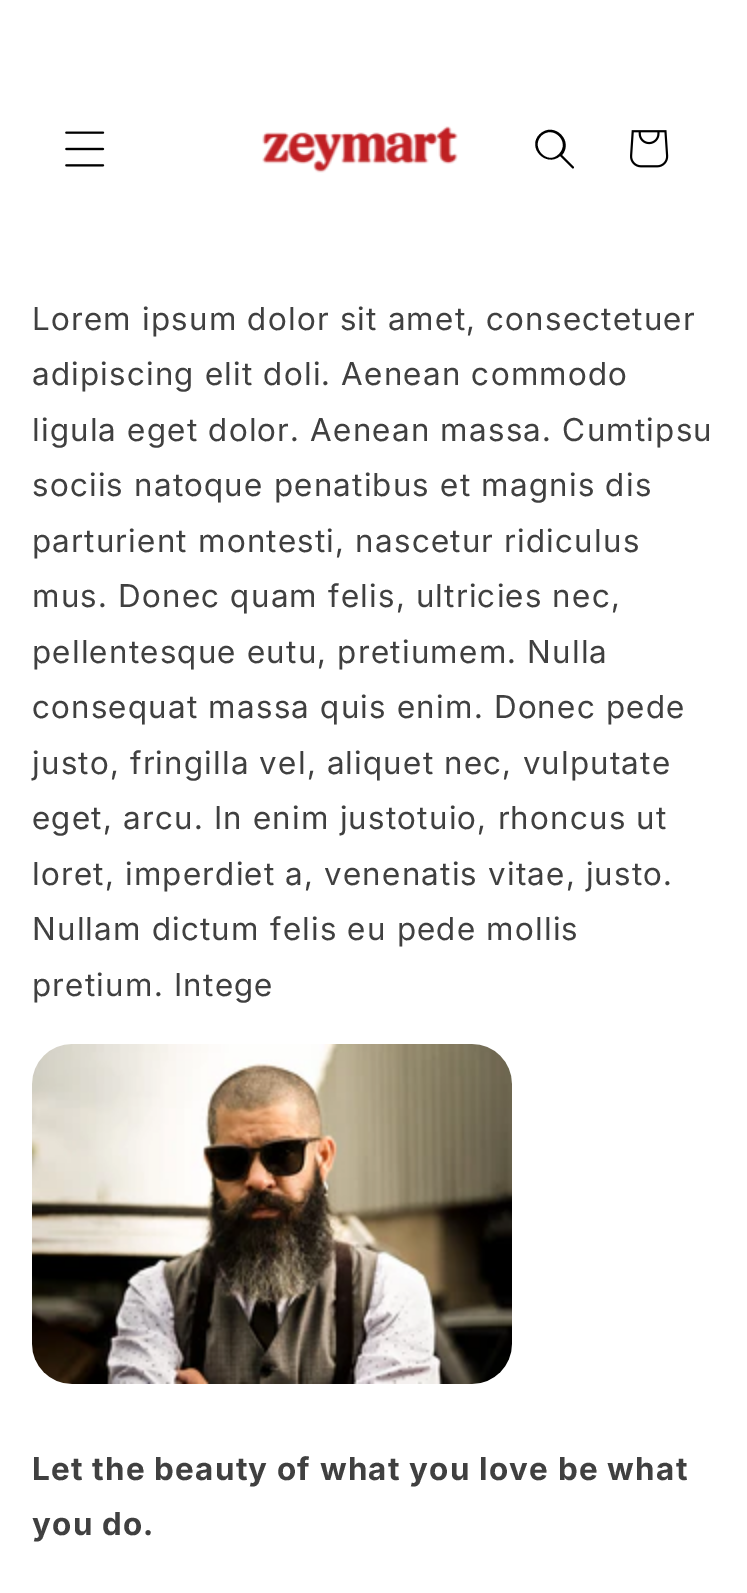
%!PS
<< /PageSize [747 1593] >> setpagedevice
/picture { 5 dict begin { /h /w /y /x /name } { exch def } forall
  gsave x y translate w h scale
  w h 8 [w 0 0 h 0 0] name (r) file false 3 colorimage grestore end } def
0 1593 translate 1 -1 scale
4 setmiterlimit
1 setgray
0 0 747 1593 rectfill
(img1.rgb) 65 131 40 36 picture
(img2.rgb) 262 126 196 47 picture
0 setgray
newpath 559 154 moveto 548 166 530 148 541 136 curveto 553 124 571 142 559 154 curveto 560 156 moveto 546 168 526 147 540 134 curveto 554 121 574 141 562 155 curveto 574 167 lineto 574 168 573 169 572 168 curveto closepath eofill
(img3.rgb) 630 130 39 38 picture
/Inter-Regular [31.5 0 0 -31.5 0 0] selectfont
0.251 setgray
32 330 moveto 1.25 0 (Lorem ipsum dolor sit amet, consectetuer) ashow
32 385 moveto 1.25 0 (adipiscing elit doli. Aenean commodo) ashow
32 441 moveto 1.25 0 (ligula eget dolor. Aenean massa. Cumtipsu) ashow
32 496 moveto 1.25 0 (sociis natoque penatibus et magnis dis) ashow
32 552 moveto 1.25 0 (parturient montesti, nascetur ridiculus) ashow
32 607 moveto 1.25 0 (mus. Donec quam felis, ultricies nec,) ashow
32 663 moveto 1.25 0 (pellentesque eutu, pretiumem. Nulla) ashow
32 718 moveto 1.25 0 (consequat massa quis enim. Donec pede) ashow
32 774 moveto 1.25 0 (justo, fringilla vel, aliquet nec, vulputate) ashow
32 829 moveto 1.25 0 (eget, arcu. In enim justotuio, rhoncus ut) ashow
32 885 moveto 1.25 0 (loret, imperdiet a, venenatis vitae, justo.) ashow
32 940 moveto 1.25 0 (Nullam dictum felis eu pede mollis) ashow
32 996 moveto 1.25 0 (pretium. Intege) ashow
(img4.rgb) 32 1044 480 340 picture
/Inter-Bold [31.5 0 0 -31.5 0 0] selectfont
32 1480 moveto 1.25 0 (Let the beauty of what you love be what) ashow
32 1535 moveto 1.25 0 (you do.) ashow
showpage
